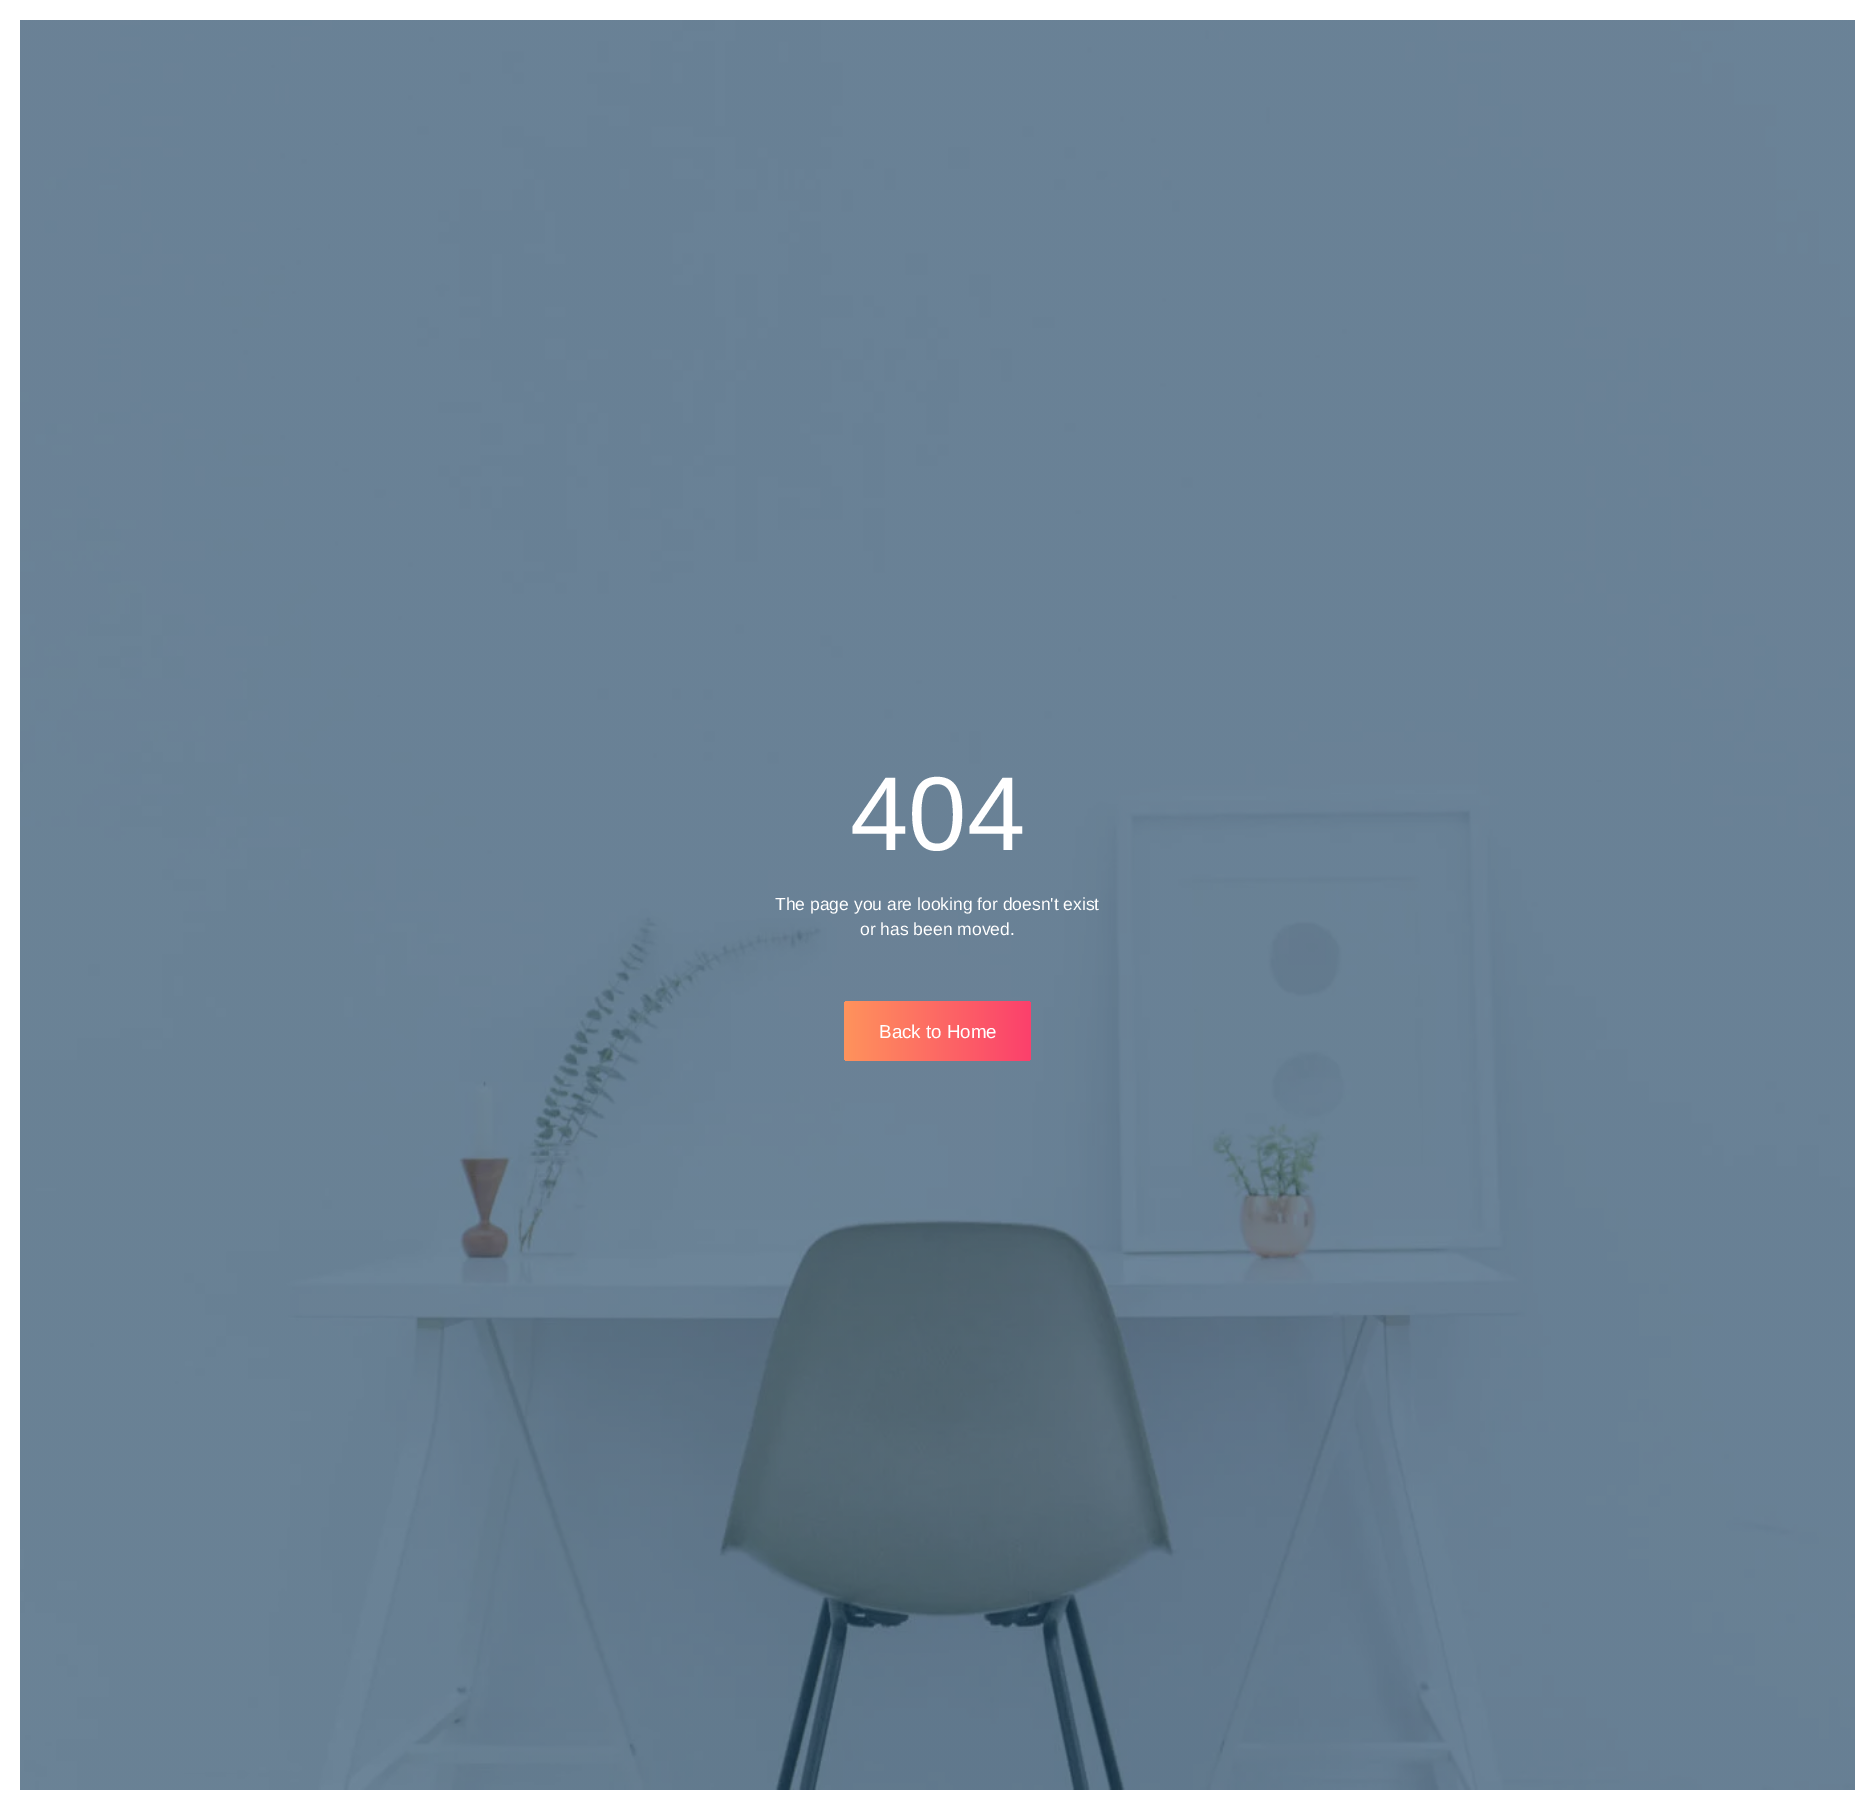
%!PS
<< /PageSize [1875 1809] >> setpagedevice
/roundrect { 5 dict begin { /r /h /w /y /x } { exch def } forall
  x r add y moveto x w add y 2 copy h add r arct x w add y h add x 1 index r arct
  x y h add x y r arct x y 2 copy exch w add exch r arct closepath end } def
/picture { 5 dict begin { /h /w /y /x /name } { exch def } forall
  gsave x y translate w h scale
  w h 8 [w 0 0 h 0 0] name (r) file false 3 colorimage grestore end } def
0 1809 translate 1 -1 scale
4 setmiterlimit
1 setgray
0 0 1875 1809 rectfill
(img1.rgb) 20 20 1835 1770 picture
/LiberationSans-Regular [105 0 0 -105 0 0] selectfont
850 850 moveto (404) show
/LiberationSans-Regular [17.5 0 0 -17.5 0 0] selectfont
775 910 moveto (The page you are looking for doesn't exist) show
860 935 moveto (or has been moved.) show
gsave 844 1001 187 60 4 roundrect clip newpath
<< /ShadingType 2 /ColorSpace /DeviceRGB /Coords [844 1031 1031 1031] /Extend [true true] /Function << /FunctionType 2 /Domain [0 1] /C0 [1 0.576 0.361] /C1 [0.984 0.251 0.424] /N 1 >> >> shfill grestore
/LiberationSans-Regular [18.75 0 0 -18.75 0 0] selectfont
879 1038 moveto (Back to Home) show
showpage
